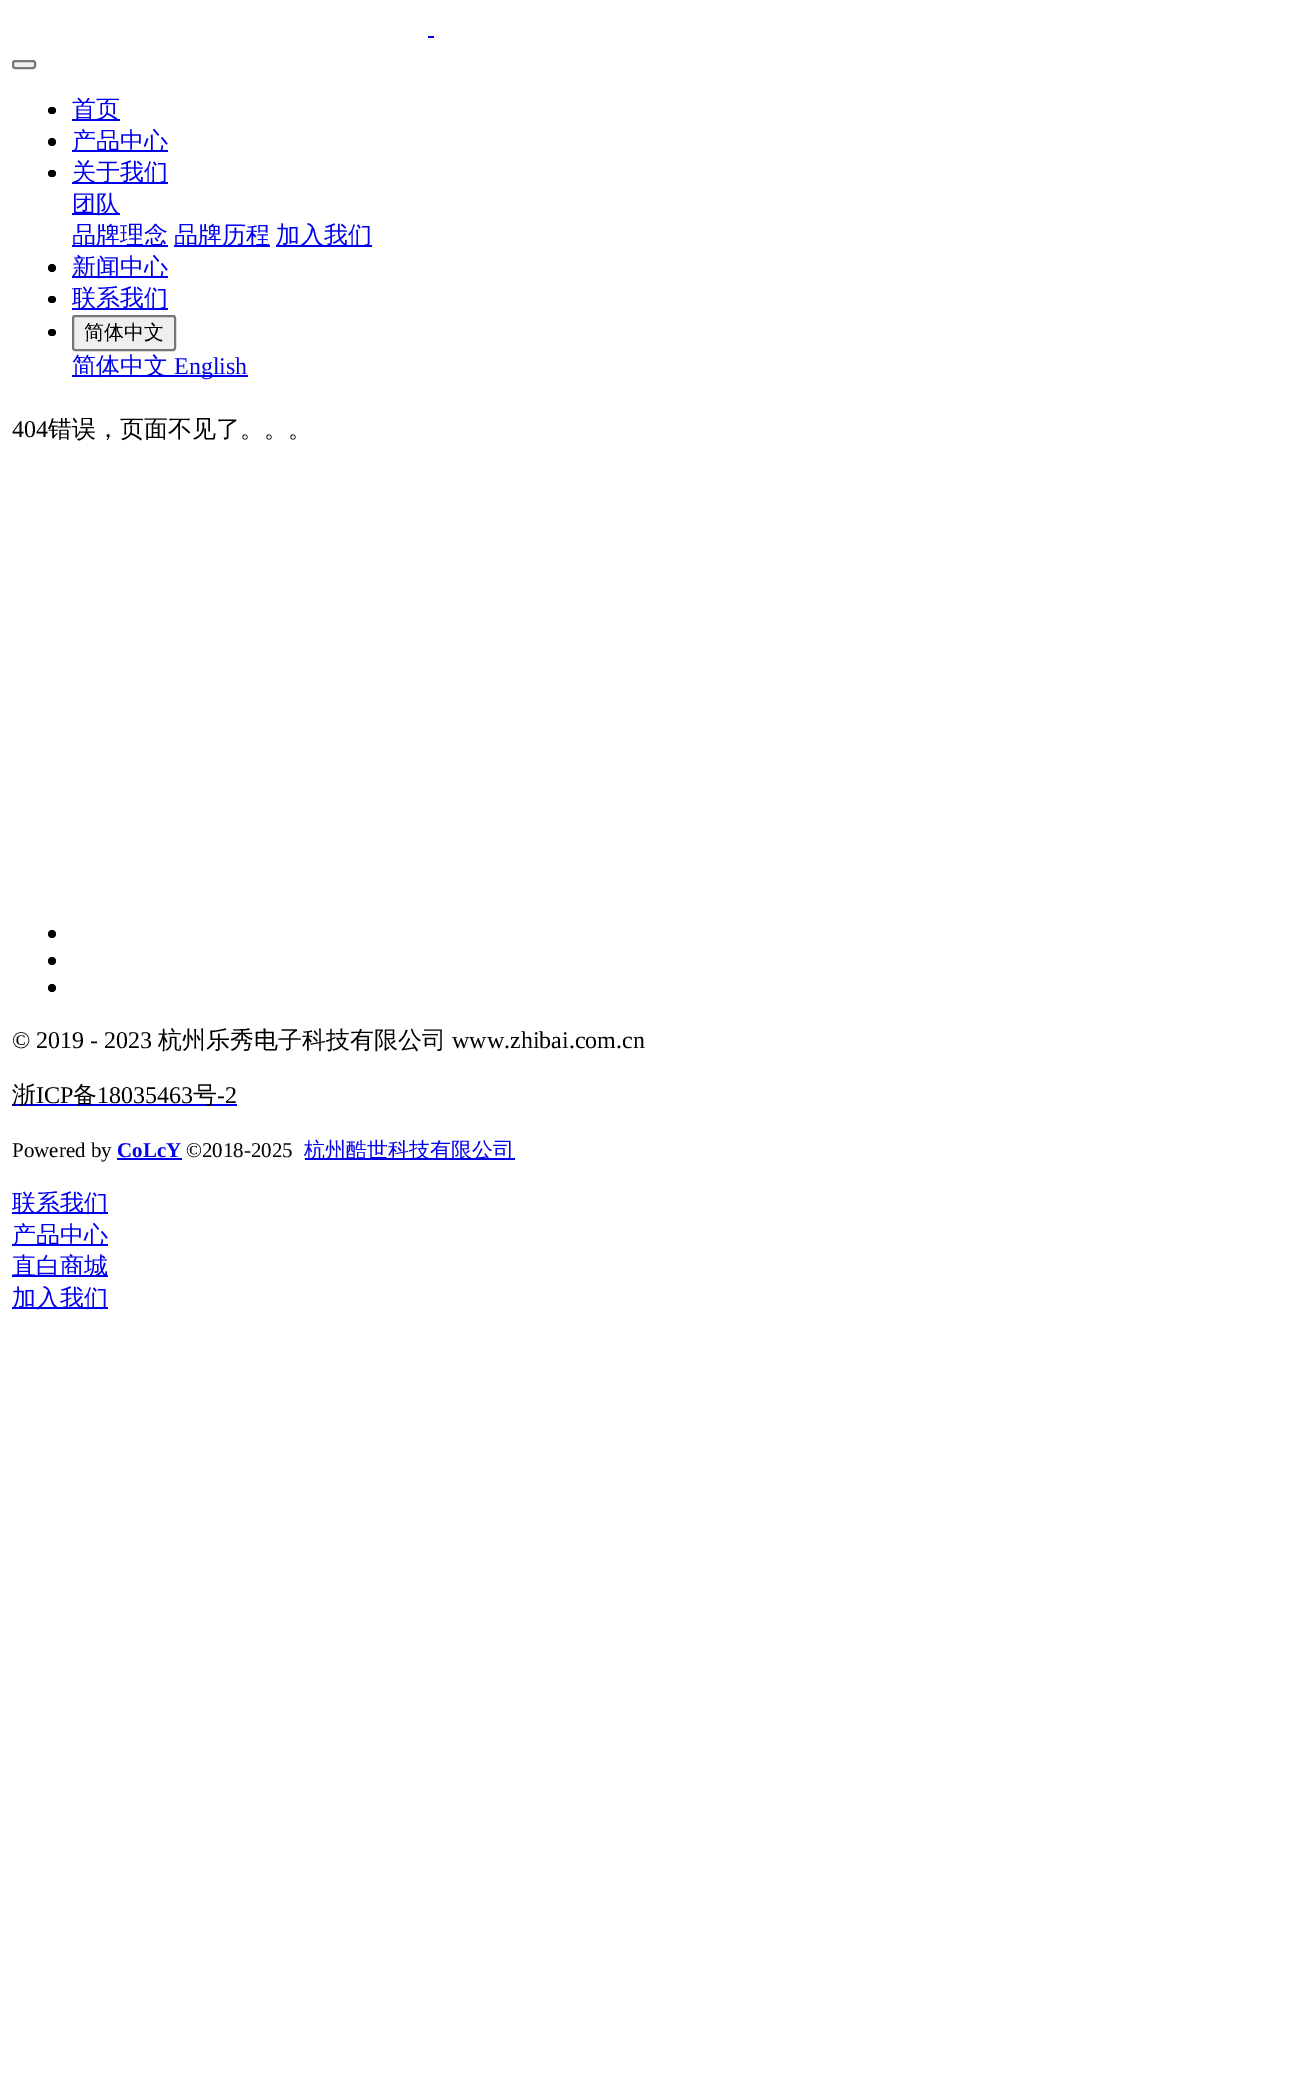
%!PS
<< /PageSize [1302 2080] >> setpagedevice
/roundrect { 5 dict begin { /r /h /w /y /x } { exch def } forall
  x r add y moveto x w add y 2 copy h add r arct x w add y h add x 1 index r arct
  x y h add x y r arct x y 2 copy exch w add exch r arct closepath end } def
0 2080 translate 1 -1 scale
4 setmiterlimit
1 setgray
0 0 1302 2080 rectfill
0 0 0.933 setrgbcolor
428 36 6 2 rectfill
0.937 setgray
13 61 22 7 2 roundrect gsave fill grestore
0.463 setgray
2 setlinewidth
stroke
0 setgray
48 107 8 7 3.5 roundrect fill
0 0 0.933 setrgbcolor
72 119 48 2 rectfill
/WenQuanYiZenHei-Medium [24 0 0 -24 0 0] selectfont
72 117 moveto (首页) show
0 setgray
newpath 52 142 4 0 360 arc closepath fill
0 0 0.933 setrgbcolor
72 150 96 2 rectfill
72 149 moveto (产品中心) show
0 setgray
48 170 8 7 3.5 roundrect fill
0 0 0.933 setrgbcolor
72 182 96 2 rectfill
72 180 moveto (关于我们) show
72 213 48 2 rectfill
72 212 moveto (团队) show
72 245 96 2 rectfill
72 243 moveto (品牌理念) show
174 245 96 2 rectfill
174 243 moveto (品牌历程) show
276 245 96 2 rectfill
276 243 moveto (加入我们) show
0 setgray
newpath 52 268 4 0 360 arc closepath fill
0 0 0.933 setrgbcolor
72 276 96 2 rectfill
72 275 moveto (新闻中心) show
0 setgray
48 296 8 7 3.5 roundrect fill
0 0 0.933 setrgbcolor
72 308 96 2 rectfill
72 306 moveto (联系我们) show
0 setgray
48 329 8 7 3.5 roundrect fill
0.937 setgray
73 316 102 34 2 roundrect gsave fill grestore
0.463 setgray
stroke
/WenQuanYiZenHei-Medium [20 0 0 -20 0 0] selectfont
0 setgray
84 339 moveto (简体中文) show
0 0 0.933 setrgbcolor
72 375 176 2 rectfill
/WenQuanYiZenHei-Medium [24 0 0 -24 0 0] selectfont
72 374 moveto (简体中文) show
/LiberationSerif-Regular [24 0 0 -24 0 0] selectfont
174 374 moveto (English) show
0 setgray
12 437 moveto (404) show
/WenQuanYiZenHei-Medium [24 0 0 -24 0 0] selectfont
48 437 moveto (错误，页面不见了。。。) show
newpath 52 934 4 0 360 arc closepath fill
newpath 52 961 4 0 360 arc closepath fill
newpath 52 988 4 0 360 arc closepath fill
/LiberationSerif-Regular [24 0 0 -24 0 0] selectfont
12 1048 moveto (© 2019 - 2023) show
/WenQuanYiZenHei-Medium [24 0 0 -24 0 0] selectfont
158 1048 moveto (杭州乐秀电子科技有限公司) show
/LiberationSerif-Regular [24 0 0 -24 0 0] selectfont
452 1048 moveto (www.zhibai.com.cn) show
0 0 0.933 setrgbcolor
12 1104 225 2 rectfill
/WenQuanYiZenHei-Medium [24 0 0 -24 0 0] selectfont
0 setgray
12 1103 moveto (浙) show
/LiberationSerif-Regular [24 0 0 -24 0 0] selectfont
36 1103 moveto (ICP) show
/WenQuanYiZenHei-Medium [24 0 0 -24 0 0] selectfont
73 1103 moveto (备) show
/LiberationSerif-Regular [24 0 0 -24 0 0] selectfont
97 1103 moveto (18035463) show
/WenQuanYiZenHei-Medium [24 0 0 -24 0 0] selectfont
193 1103 moveto (号) show
/LiberationSerif-Regular [24 0 0 -24 0 0] selectfont
217 1103 moveto (-2) show
/LiberationSerif-Regular [21 0 0 -21 0 0] selectfont
12 1157 moveto (Powered by) show
/LiberationSerif-Bold [21 0 0 -21 0 0] selectfont
0 0 0.933 setrgbcolor
117 1157 moveto (CoLcY) show
117 1158 65 2 rectfill
/LiberationSerif-Regular [21 0 0 -21 0 0] selectfont
0 setgray
186 1157 moveto (©2018-2025) show
0 0 0.933 setrgbcolor
305 1158 210 2 rectfill
/WenQuanYiZenHei-Medium [21 0 0 -21 0 0] selectfont
304 1157 moveto (杭州酷世科技有限公司) show
12 1212 96 2 rectfill
/WenQuanYiZenHei-Medium [24 0 0 -24 0 0] selectfont
12 1211 moveto (联系我们) show
12 1244 96 2 rectfill
12 1243 moveto (产品中心) show
12 1275 96 2 rectfill
12 1274 moveto (直白商城) show
12 1307 96 2 rectfill
12 1306 moveto (加入我们) show
showpage
